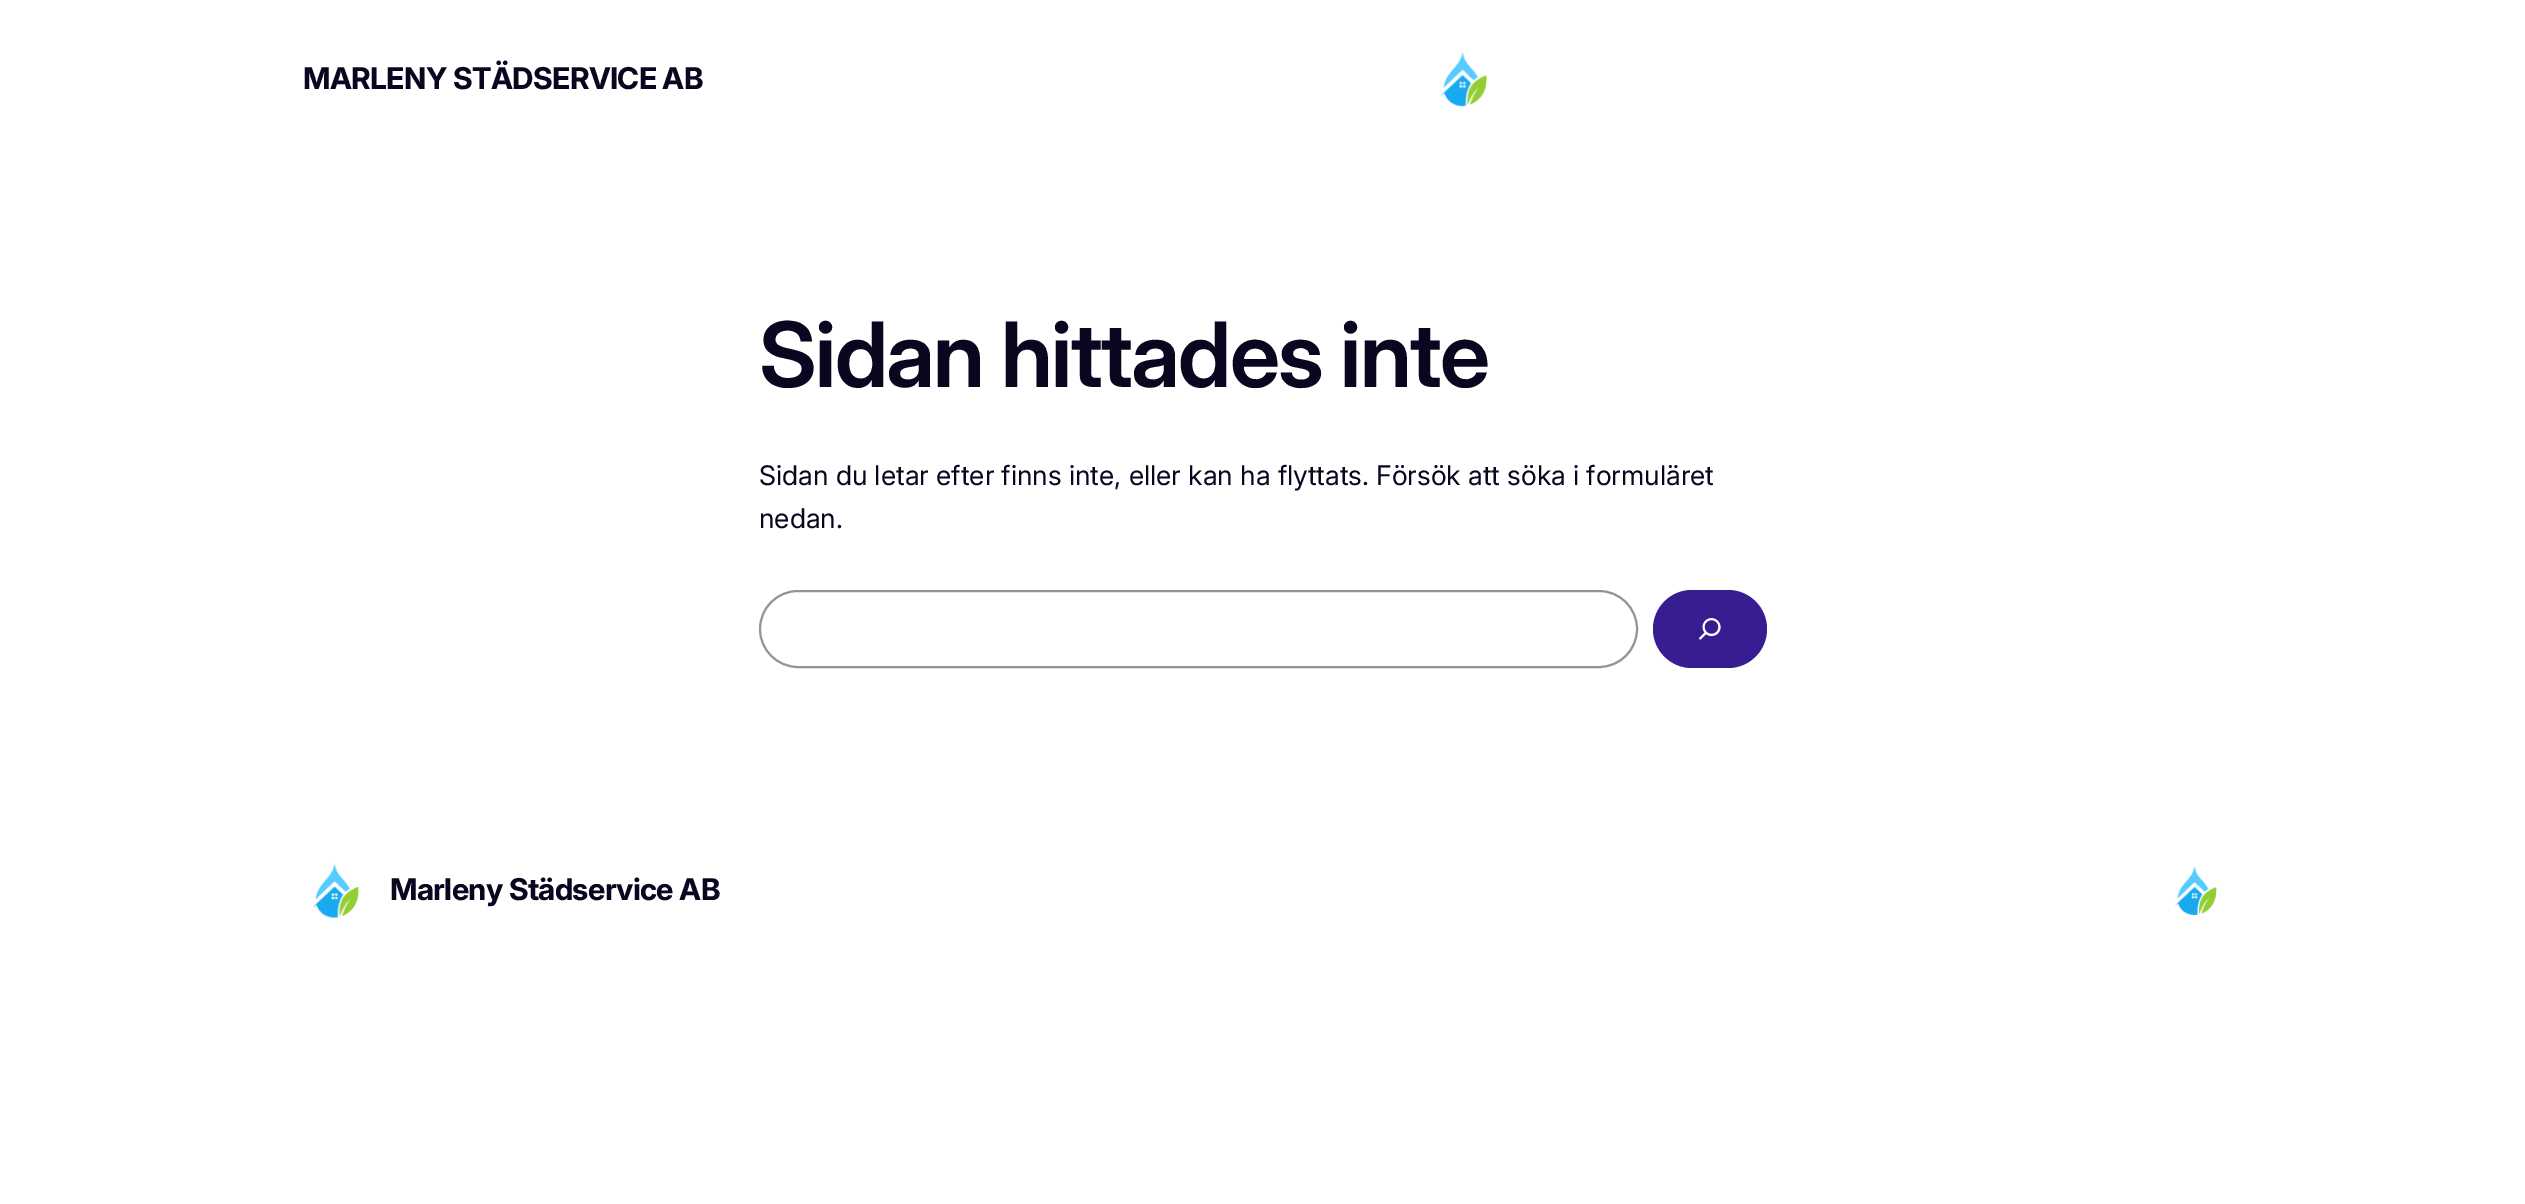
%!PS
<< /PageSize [2525 1204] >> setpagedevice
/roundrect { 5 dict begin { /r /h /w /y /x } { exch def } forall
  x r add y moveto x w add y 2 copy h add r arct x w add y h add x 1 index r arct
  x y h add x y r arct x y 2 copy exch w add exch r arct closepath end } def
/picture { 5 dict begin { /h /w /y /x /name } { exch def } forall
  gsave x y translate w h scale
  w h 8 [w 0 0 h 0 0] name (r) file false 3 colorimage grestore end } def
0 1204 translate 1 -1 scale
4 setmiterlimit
1 setgray
0 0 2525 1204 rectfill
/Inter-Bold [30 0 0 -30 0 0] selectfont
0.043 0.024 0.125 setrgbcolor
303 89 moveto -0.6 0 (MARLENY STÄDSERVICE AB) ashow
(img1.rgb) 1440 52 48 55 picture
/Inter-SemiBold [90 0 0 -90 0 0] selectfont
759 387 moveto -1.75 0 (Sidan hittades inte) ashow
/Inter-Regular [27 0 0 -27 0 0] selectfont
759 485 moveto (Sidan du letar efter finns inte, eller kan ha flyttats. Försök att söka i formuläret) show
759 528 moveto (nedan.) show
0.58 setgray
2 setlinewidth
760 591 877 76 38 roundrect stroke
0.22 0.114 0.573 setrgbcolor
1653 590 114 78 39 roundrect fill
(img2.rgb) 1698 618 23 22 picture
(img3.rgb) 313 863 47 55 picture
/Inter-Bold [30 0 0 -30 0 0] selectfont
0.043 0.024 0.125 setrgbcolor
390 900 moveto -0.6 0 (Marleny Städservice AB) ashow
(img4.rgb) 2175 866 42 49 picture
showpage
